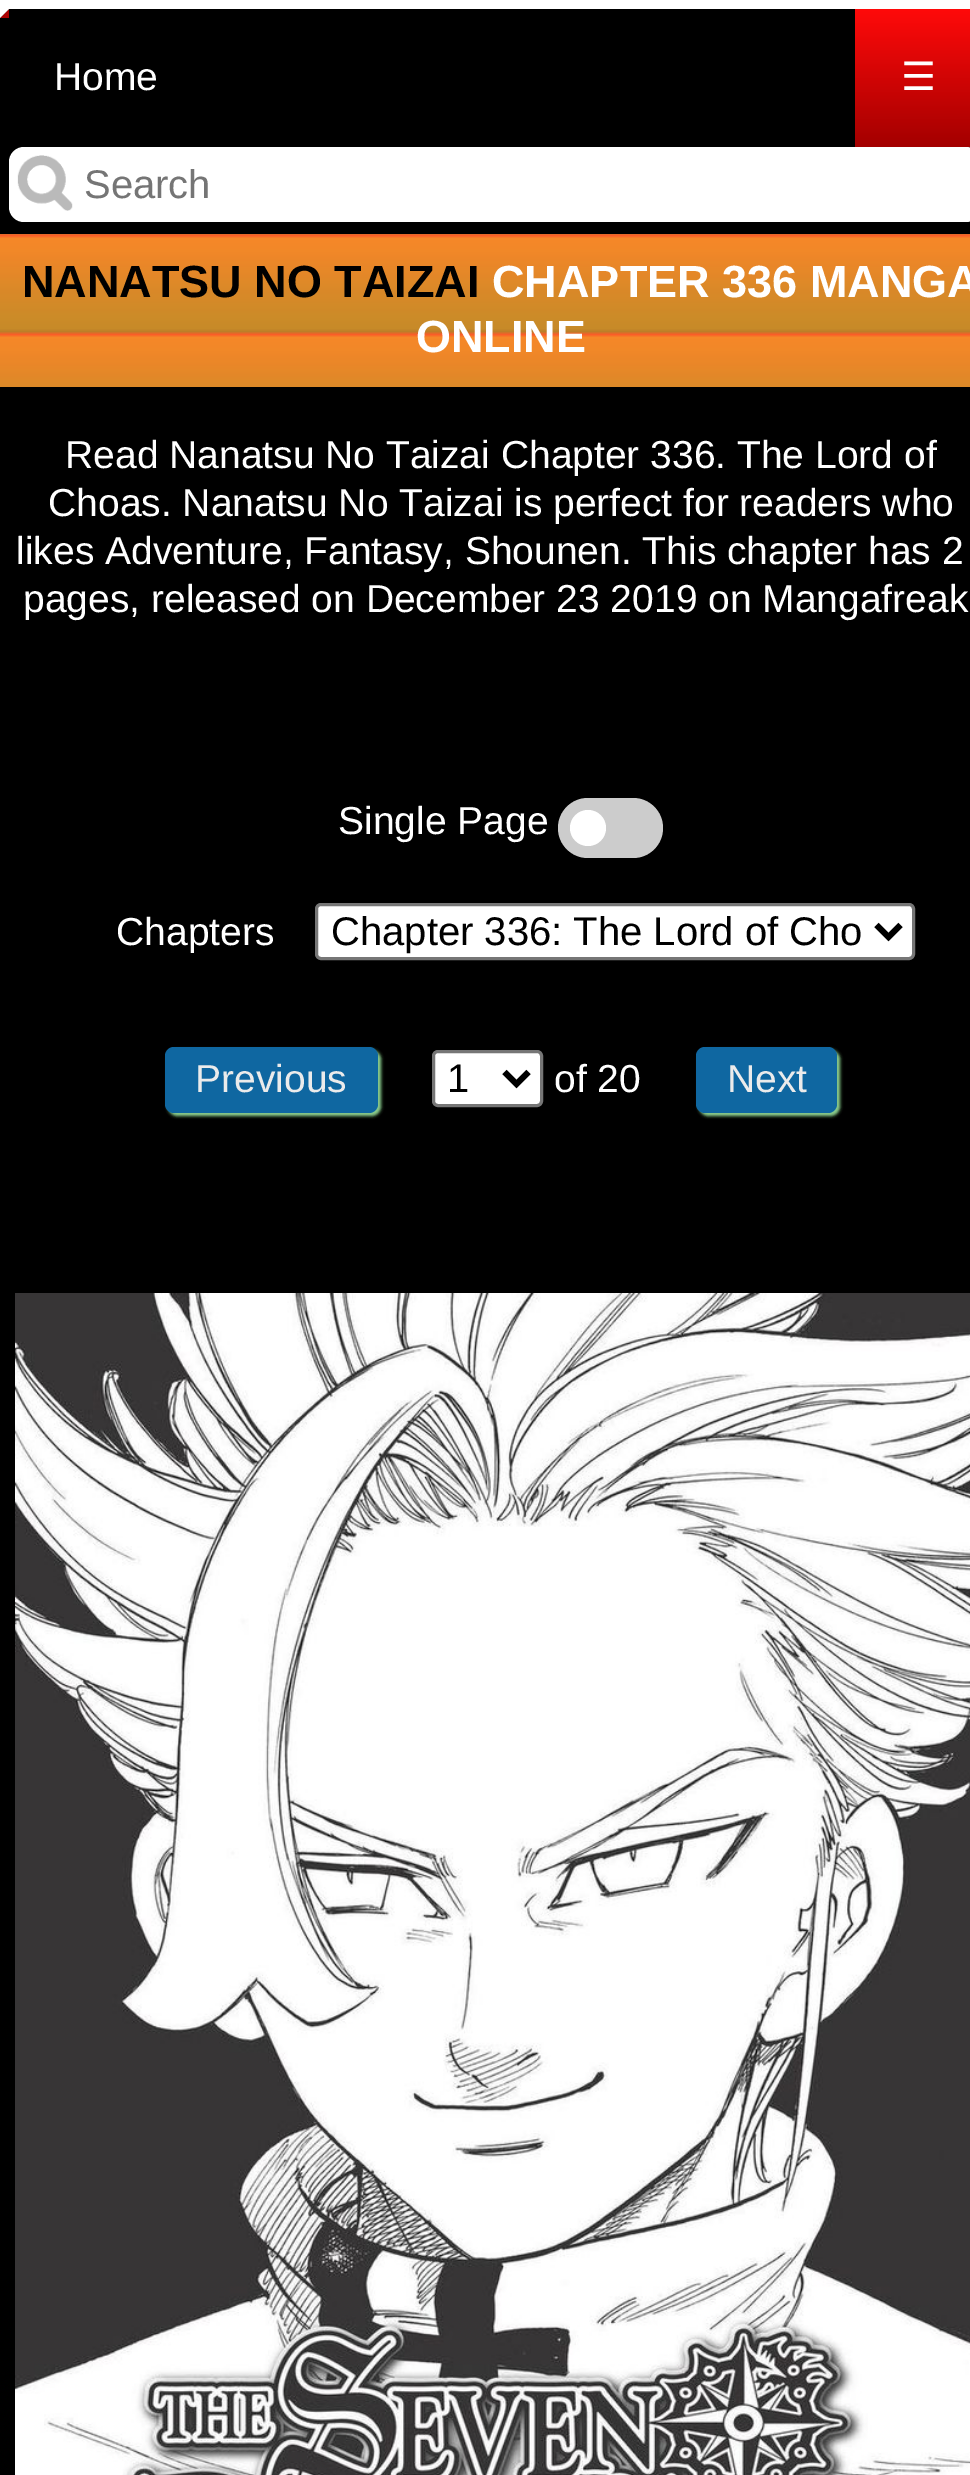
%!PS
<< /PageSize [970 2475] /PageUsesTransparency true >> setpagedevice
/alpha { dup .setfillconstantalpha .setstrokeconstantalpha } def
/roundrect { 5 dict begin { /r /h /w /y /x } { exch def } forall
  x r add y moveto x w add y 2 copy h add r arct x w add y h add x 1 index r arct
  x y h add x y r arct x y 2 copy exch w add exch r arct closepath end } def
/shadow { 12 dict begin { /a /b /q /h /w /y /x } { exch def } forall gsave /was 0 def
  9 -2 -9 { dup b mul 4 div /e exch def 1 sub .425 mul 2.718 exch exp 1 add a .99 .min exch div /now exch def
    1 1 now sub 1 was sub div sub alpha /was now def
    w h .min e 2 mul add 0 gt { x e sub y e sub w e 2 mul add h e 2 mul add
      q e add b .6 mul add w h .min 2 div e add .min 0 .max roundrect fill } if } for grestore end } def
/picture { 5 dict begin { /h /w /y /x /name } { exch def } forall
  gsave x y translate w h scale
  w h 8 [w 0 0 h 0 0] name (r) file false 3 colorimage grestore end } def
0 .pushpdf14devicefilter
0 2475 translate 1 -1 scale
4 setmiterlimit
0 setgray
0 0 970 2475 rectfill
1 setgray
0 0 970 9 rectfill
newpath 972 0 moveto 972 18 lineto 963 9 lineto closepath fill
0.667 0 0 setrgbcolor
newpath 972 18 moveto 0 18 lineto 9 9 lineto 963 9 lineto closepath fill
1 setgray
newpath 0 18 moveto 0 0 lineto 9 9 lineto closepath fill
0 setgray
9 9 961 9 rectfill
/LiberationSans-Regular [39 0 0 -39 0 0] selectfont
1 setgray
54 90 moveto (Home) show
gsave newpath 855 9 moveto 970 9 lineto 970 147 lineto 855 147 lineto closepath clip newpath
<< /ShadingType 2 /ColorSpace /DeviceRGB /Coords [918 9 918 147] /Extend [true true] /Function << /FunctionType 2 /Domain [0 1] /C0 [1 0.039 0.039] /C1 [0.639 0 0] /N 1 >> >> shfill grestore
/DejaVuSans-Regular [39 0 0 -39 0 0] selectfont
901 90 moveto (☰) show
9 147 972 75 15 roundrect fill
(img1.rgb) 17 155 56 56 picture
/LiberationSans-Regular [40 0 0 -40 0 0] selectfont
0.459 setgray
84 198 moveto (Search) show
(img2.rgb) 0 234 970 153 picture
/LiberationSans-Bold [45 0 0 -45 0 0] selectfont
0 setgray
22 297 moveto (NANATSU NO TAIZAI) show
1 setgray
492 297 moveto (CHAPTER 336 MANGA) show
416 352 moveto (ONLINE) show
/LiberationSans-Regular [39 0 0 -39 0 0] selectfont
65 468 moveto (Read Nanatsu No Taizai Chapter 336. The Lord of) show
48 516 moveto (Choas. Nanatsu No Taizai is perfect for readers who) show
16 564 moveto (likes Adventure, Fantasy, Shounen. This chapter has 2) show
23 612 moveto (pages, released on December 23 2019 on Mangafreak) show
338 834 moveto (Single Page) show
0.8 setgray
558 798 105 60 30 roundrect fill
1 setgray
newpath 588 828 18 0 360 arc closepath fill
116 945 moveto (Chapters) show
316.5 904.5 597 54 4.5 roundrect gsave fill grestore
0.463 setgray
3 setlinewidth
stroke
0 setgray
6 setlinewidth
newpath 876.5 925 moveto 888.5 937 lineto 900.5 925 lineto stroke
/LiberationSans-Regular [40 0 0 -40 0 0] selectfont
331 945 moveto (Chapter 336: The Lord of Cho) show
0.553 0.816 0.561 setrgbcolor
168 1050 213 66 9 1.5 1 shadow
0.059 0.404 0.631 setrgbcolor
165 1047 213 66 9 roundrect fill
/LiberationSans-Regular [39 0 0 -39 0 0] selectfont
0.922 setgray
195 1092 moveto (Previous) show
1 setgray
433.5 1051.5 108 54 4.5 roundrect gsave fill grestore
0.463 setgray
3 setlinewidth
stroke
0 setgray
6 setlinewidth
newpath 504.5 1072 moveto 516.5 1084 lineto 528.5 1072 lineto stroke
/LiberationSans-Regular [40 0 0 -40 0 0] selectfont
447 1092 moveto (1) show
/LiberationSans-Regular [39 0 0 -39 0 0] selectfont
1 setgray
554 1092 moveto (of 20) show
0.553 0.816 0.561 setrgbcolor
699 1050 141 66 9 1.5 1 shadow
0.059 0.404 0.631 setrgbcolor
696 1047 141 66 9 roundrect fill
0.922 setgray
727 1092 moveto (Next) show
(img3.rgb) 15 1293 955 1182 picture
.poppdf14devicefilter showpage
